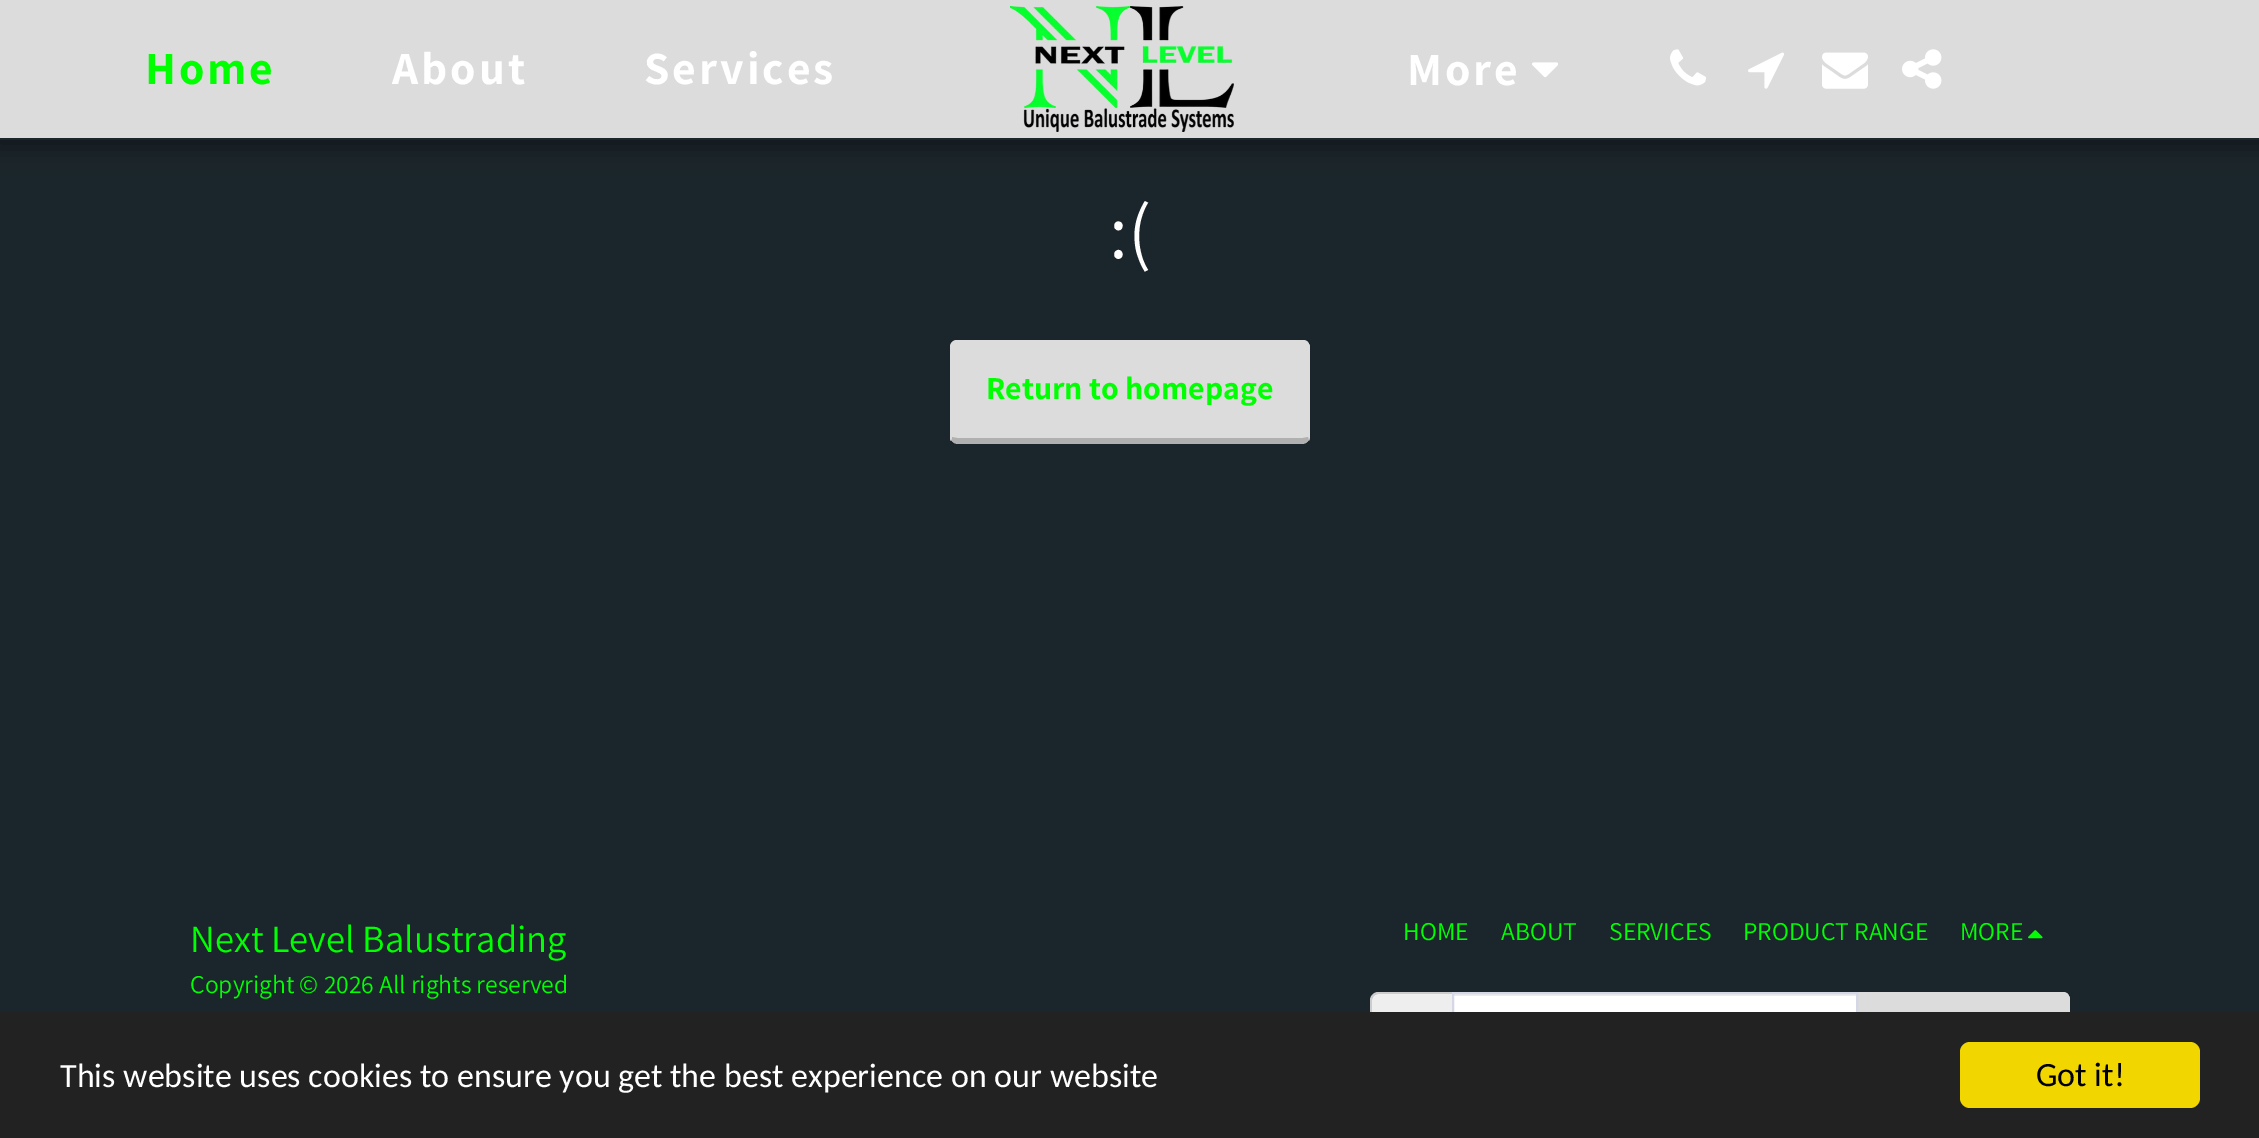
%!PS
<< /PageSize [2259 1138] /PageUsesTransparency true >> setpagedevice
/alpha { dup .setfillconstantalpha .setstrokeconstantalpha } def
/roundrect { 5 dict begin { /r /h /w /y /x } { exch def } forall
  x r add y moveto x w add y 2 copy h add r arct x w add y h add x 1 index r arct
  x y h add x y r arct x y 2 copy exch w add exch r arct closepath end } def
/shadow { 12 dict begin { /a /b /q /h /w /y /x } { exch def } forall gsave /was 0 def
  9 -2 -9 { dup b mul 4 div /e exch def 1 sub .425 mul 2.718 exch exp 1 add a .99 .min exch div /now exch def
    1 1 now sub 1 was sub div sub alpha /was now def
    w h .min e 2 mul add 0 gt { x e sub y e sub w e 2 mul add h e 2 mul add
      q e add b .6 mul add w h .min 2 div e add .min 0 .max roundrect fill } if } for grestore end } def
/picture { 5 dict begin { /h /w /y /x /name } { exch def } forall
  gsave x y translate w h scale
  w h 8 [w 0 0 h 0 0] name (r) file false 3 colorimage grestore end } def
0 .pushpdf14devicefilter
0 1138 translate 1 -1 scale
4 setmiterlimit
0.106 0.149 0.173 setrgbcolor
0 0 2259 1138 rectfill
0 setgray
-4 0 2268 148 0 12 0.35 shadow
0.863 setgray
0 0 2259 138 rectfill
0.106 0.149 0.173 setrgbcolor
0 138 2259 2 rectfill
/Assistant-Bold [46 0 0 -46 0 0] selectfont
0 1 0 setrgbcolor
145 84 moveto 3 0 (Home) ashow
1 setgray
392 84 moveto 3 0 (About) ashow
644 84 moveto 3 0 (Services) ashow
(img1.rgb) 1010 6 224 126 picture
1407 85 moveto 3 0 (More) ashow
(img2.rgb) 1532 62 26 16 picture
(img3.rgb) 1670 49 36 37 picture
(img4.rgb) 1748 52 36 37 picture
(img5.rgb) 1822 52 46 37 picture
(img6.rgb) 1902 49 40 40 picture
/Assistant-Regular [78 0 0 -78 0 0] selectfont
1109 258 moveto (:\() show
0.863 setgray
950 340 360 104 8 roundrect fill
newpath 957 340 moveto 955 340 953 341 952 342 curveto 953 343 lineto 954 342 956 342 957 342 curveto 1303 342 lineto 1304 342 1306 342 1307 343 curveto 1308 342 lineto 1307 341 1305 340 1303 340 curveto closepath fill
newpath 1310 437 moveto 1310 346 lineto 1308 342 lineto 1307 343 lineto 1310 347 1308 361 1308 362 curveto 1308 437 lineto 1309 441 lineto closepath fill
0.2 alpha
0 setgray
newpath 957 444 moveto 1303 444 lineto 1306 444 1308 443 1309 441 curveto 1308 437 lineto 1303 438 lineto 957 438 lineto 952 437 lineto 951 441 lineto 952 443 954 444 957 444 curveto closepath fill
1 alpha
0.863 setgray
newpath 950 347 moveto 950 437 lineto 950 438 950 440 951 441 curveto 952 437 lineto 952 362 lineto 952 361 950 347 953 343 curveto 952 342 lineto 951 343 950 345 950 347 curveto closepath fill
/Assistant-Bold [32 0 0 -32 0 0] selectfont
0 1 0 setrgbcolor
986 399 moveto (Return to homepage) show
/Assistant-Regular [38.5 0 0 -38.5 0 0] selectfont
190 952 moveto (Next Level Balustrading) show
/Assistant-Regular [25.6 0 0 -25.6 0 0] selectfont
190 993 moveto (Copyright © 2026 All rights reserved) show
1403 940 moveto (HOME) show
1501 940 moveto (ABOUT) show
1609 940 moveto (SERVICES) show
1743 940 moveto (PRODUCT RANGE) show
1960 940 moveto (MORE) show
(img7.rgb) 2028 930 15 9 picture
0.933 setgray
newpath 1378 994 moveto 1452 994 lineto 1452 1094 lineto 1378 1094 lineto 1374.5 1094 1372 1091.5 1372 1088 curveto 1372 1000 lineto 1372 996.5 1374.5 994 1378 994 curveto closepath fill
0.8 setgray
newpath 1378 992 moveto 1452 992 lineto 1452 1096 lineto 1378 1096 lineto 1374 1096 1370 1092 1370 1088 curveto 1370 1000 lineto 1370 996 1374 992 1378 992 curveto closepath 1378 994 moveto 1452 994 lineto 1452 1094 lineto 1378 1094 lineto 1375 1094 1372 1091 1372 1088 curveto 1372 1000 lineto 1372 997 1375 994 1378 994 curveto closepath eofill
1 setgray
1454 996 402 16 rectfill
0.925 setgray
1454 994 402 2 rectfill
0.863 setgray
newpath 1856 992 moveto 2062 992 lineto 2066.5 992 2070 995.5 2070 1000 curveto 2070 1088 lineto 2070 1092.5 2066.5 1096 2062 1096 curveto 1856 1096 lineto closepath fill
newpath 1856 992 moveto 1858 994 lineto 2063 994 lineto 2064 994 2066 994 2067 995 curveto 2068 994 lineto 2067 993 2065 992 2063 992 curveto closepath fill
0.831 0.843 0.898 setrgbcolor
2 setlinewidth
1453 993 404 102 rectstroke
0.863 setgray
newpath 2070 1089 moveto 2070 998 lineto 2068 994 lineto 2067 995 lineto 2070 999 2068 1013 2068 1014 curveto 2068 1089 lineto 2069 1093 lineto closepath fill
0.133 setgray
0 1012 2259 126 rectfill
/Carlito-Regular [34 0 0 -34 0 0] selectfont
1 setgray
60 1087 moveto (This website uses cookies to ensure you get the best experience on our website) show
0.945 0.839 0 setrgbcolor
1960 1042 240 66 10 roundrect fill
0 setgray
2036 1086 moveto (Got it!) show
.poppdf14devicefilter showpage
